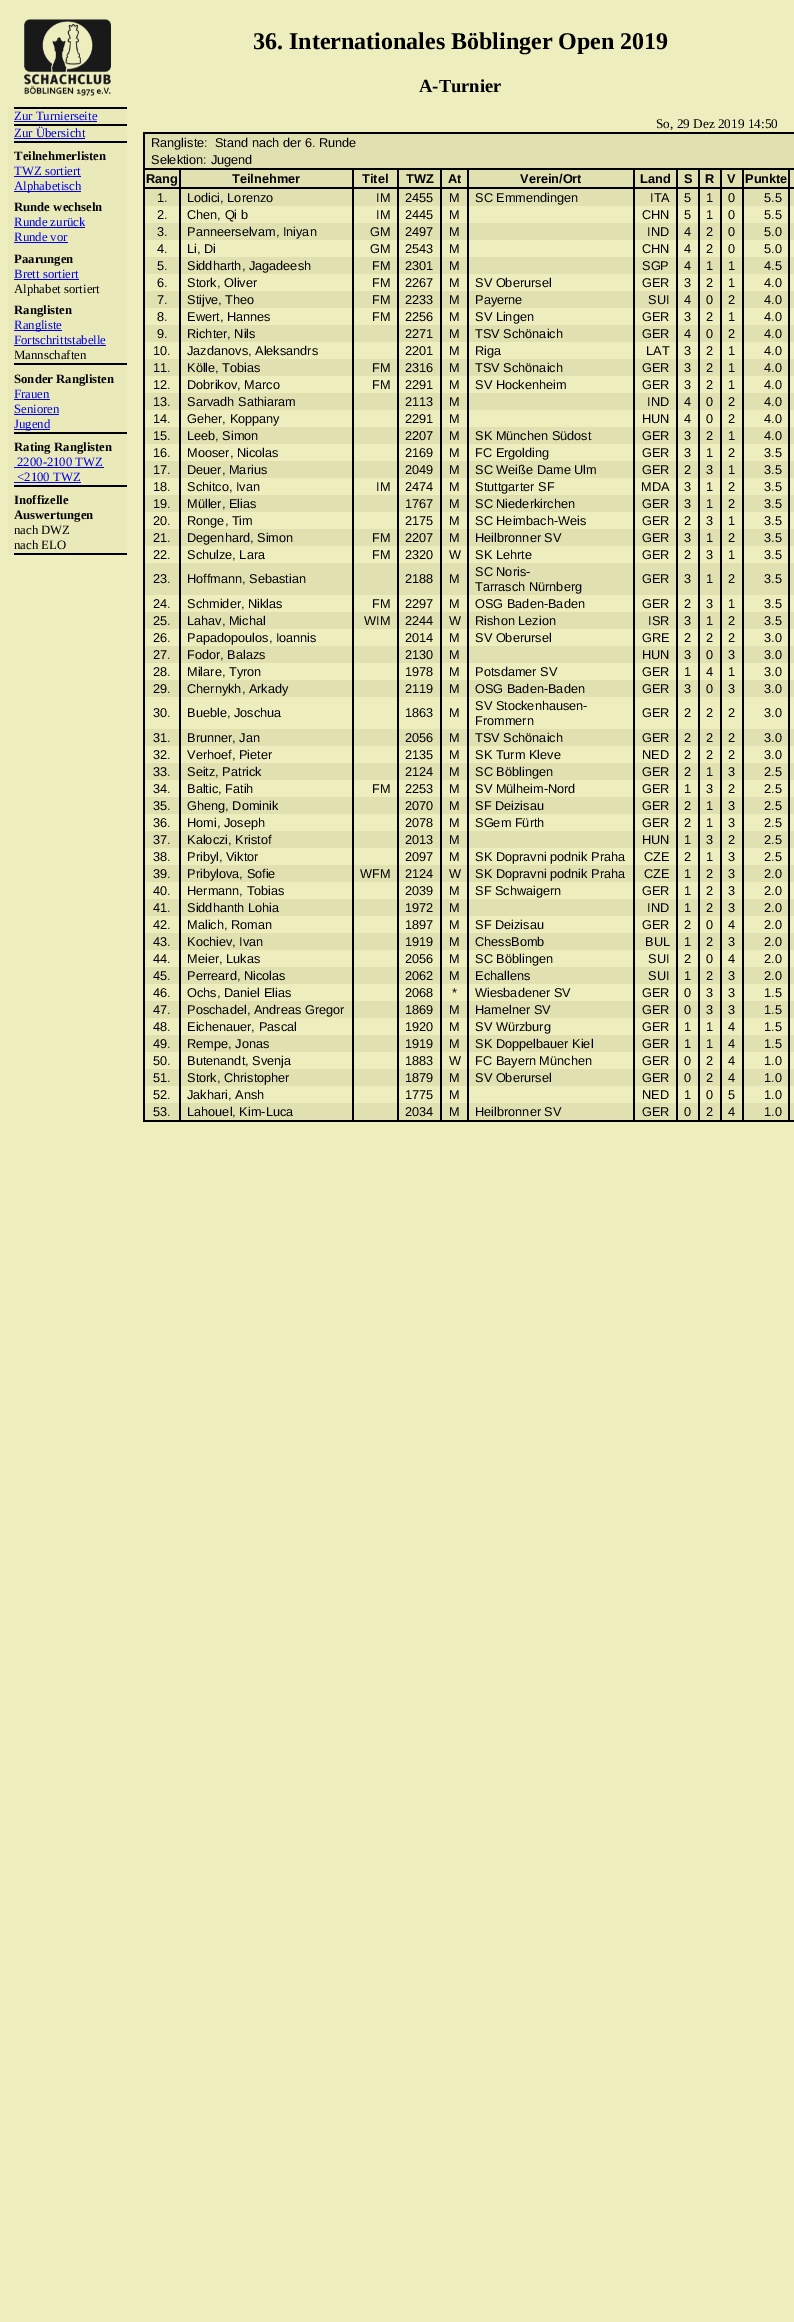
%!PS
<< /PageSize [794 2322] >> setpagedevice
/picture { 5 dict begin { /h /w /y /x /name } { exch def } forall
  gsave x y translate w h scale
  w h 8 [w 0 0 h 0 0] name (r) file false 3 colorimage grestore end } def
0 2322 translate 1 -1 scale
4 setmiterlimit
0.929 0.929 0.741 setrgbcolor
0 0 794 2322 rectfill
0.914 0.914 0.725 setrgbcolor
8 107 119 448 rectfill
(img1.rgb) 24 19 87 77 picture
0 setgray
14 107 113 2 rectfill
/LiberationSerif-Regular [12.75 0 0 -12.75 0 0] selectfont
0 0 0.933 setrgbcolor
14 120 moveto (Zur Turnierseite) show
14 121 83 1 rectfill
0 setgray
14 124 113 2 rectfill
0 0 0.933 setrgbcolor
14 137 moveto (Zur Übersicht) show
14 138 71 1 rectfill
0 setgray
14 141 113 2 rectfill
/LiberationSerif-Bold [12.75 0 0 -12.75 0 0] selectfont
14 160 moveto (Teilnehmerlisten) show
/LiberationSerif-Regular [12.75 0 0 -12.75 0 0] selectfont
0 0 0.933 setrgbcolor
14 175 moveto (TWZ sortiert) show
14 176 67 1 rectfill
14 191 67 1 rectfill
14 190 moveto (Alphabetisch) show
/LiberationSerif-Bold [12.75 0 0 -12.75 0 0] selectfont
0 setgray
14 211 moveto (Runde wechseln) show
/LiberationSerif-Regular [12.75 0 0 -12.75 0 0] selectfont
0 0 0.933 setrgbcolor
14 226 moveto (Runde zurück) show
14 227 71 1 rectfill
14 241 moveto (Runde vor) show
14 242 54 1 rectfill
/LiberationSerif-Bold [12.75 0 0 -12.75 0 0] selectfont
0 setgray
14 263 moveto (Paarungen) show
/LiberationSerif-Regular [12.75 0 0 -12.75 0 0] selectfont
0 0 0.933 setrgbcolor
14 278 moveto (Brett sortiert) show
14 279 65 1 rectfill
0 setgray
14 293 moveto (Alphabet sortiert) show
/LiberationSerif-Bold [12.75 0 0 -12.75 0 0] selectfont
14 314 moveto (Ranglisten) show
0 0 0.933 setrgbcolor
14 330 48 1 rectfill
/LiberationSerif-Regular [12.75 0 0 -12.75 0 0] selectfont
14 329 moveto (Rangliste) show
14 344 moveto (Fortschrittstabelle) show
14 345 92 1 rectfill
0 setgray
14 359 moveto (Mannschaften) show
14 363 113 2 rectfill
/LiberationSerif-Bold [12.75 0 0 -12.75 0 0] selectfont
14 383 moveto (Sonder Ranglisten) show
/LiberationSerif-Regular [12.75 0 0 -12.75 0 0] selectfont
0 0 0.933 setrgbcolor
14 398 moveto (Frauen) show
14 399 36 1 rectfill
14 413 moveto (Senioren) show
14 414 45 1 rectfill
14 429 36 1 rectfill
14 428 moveto (Jugend) show
0 setgray
14 432 113 2 rectfill
/LiberationSerif-Bold [12.75 0 0 -12.75 0 0] selectfont
14 451 moveto (Rating Ranglisten) show
/LiberationSerif-Regular [12.75 0 0 -12.75 0 0] selectfont
0 0 0.933 setrgbcolor
17 466 moveto (2200-2100 TWZ) show
14 467 90 1 rectfill
17 481 moveto (<2100 TWZ) show
14 482 67 1 rectfill
0 setgray
14 485 113 2 rectfill
/LiberationSerif-Bold [12.75 0 0 -12.75 0 0] selectfont
14 504 moveto (Inoffizelle) show
14 519 moveto (Auswertungen) show
/LiberationSerif-Regular [12.75 0 0 -12.75 0 0] selectfont
14 534 moveto (nach DWZ) show
14 549 moveto (nach ELO) show
14 553 113 2 rectfill
/LiberationSerif-Bold [24 0 0 -24 0 0] selectfont
253 49 moveto (36. Internationales Böblinger Open 2019) show
/LiberationSerif-Bold [18.5 0 0 -18.5 0 0] selectfont
419 92 moveto (A-Turnier) show
/LiberationSerif-Regular [13.25 0 0 -13.25 0 0] selectfont
656 128 moveto (So, 29 Dez 2019 14:50) show
143 132 651 2 rectfill
143 1120 651 2 rectfill
143 132 2 990 rectfill
0.878 0.878 0.69 setrgbcolor
145 134 649 34 rectfill
/LiberationSans-Regular [12.75 0 0 -12.75 0 0] selectfont
0 setgray
151 147 moveto (Rangliste:  Stand nach der 6. Runde) show
151 164 moveto (Selektion: Jugend) show
0.878 0.878 0.69 setrgbcolor
145 170 649 17 rectfill
0 setgray
788 168 6 2 rectfill
0.878 0.878 0.69 setrgbcolor
145 189 649 17 rectfill
145 223 649 17 rectfill
145 257 649 17 rectfill
145 291 649 17 rectfill
145 325 649 17 rectfill
145 359 649 17 rectfill
145 393 649 17 rectfill
145 427 649 17 rectfill
145 461 649 17 rectfill
145 495 649 17 rectfill
145 529 649 17 rectfill
145 563 649 32 rectfill
145 612 649 17 rectfill
145 646 649 17 rectfill
145 680 649 17 rectfill
145 729 649 17 rectfill
145 763 649 17 rectfill
145 797 649 17 rectfill
145 831 649 17 rectfill
145 865 649 17 rectfill
145 899 649 17 rectfill
145 933 649 17 rectfill
145 967 649 17 rectfill
145 1001 649 17 rectfill
145 1035 649 17 rectfill
145 1069 649 17 rectfill
145 1103 649 17 rectfill
0 setgray
788 187 2 935 rectfill
788 187 6 2 rectfill
788 168 2 21 rectfill
742 168 48 2 rectfill
742 187 2 935 rectfill
742 187 48 2 rectfill
742 168 2 21 rectfill
720 168 24 2 rectfill
720 187 2 935 rectfill
720 187 24 2 rectfill
720 168 2 21 rectfill
698 168 24 2 rectfill
698 187 2 935 rectfill
698 187 24 2 rectfill
698 168 2 21 rectfill
676 168 24 2 rectfill
676 187 2 935 rectfill
676 187 24 2 rectfill
676 168 2 21 rectfill
633 168 45 2 rectfill
633 187 2 935 rectfill
633 187 45 2 rectfill
633 168 2 21 rectfill
467 168 168 2 rectfill
467 187 2 935 rectfill
467 187 168 2 rectfill
467 168 2 21 rectfill
440 168 29 2 rectfill
440 187 2 935 rectfill
440 187 29 2 rectfill
440 168 2 21 rectfill
397 168 45 2 rectfill
397 187 2 935 rectfill
397 187 45 2 rectfill
397 168 2 21 rectfill
352 168 47 2 rectfill
352 187 2 935 rectfill
352 187 47 2 rectfill
352 168 2 21 rectfill
179 168 175 2 rectfill
179 187 2 935 rectfill
179 187 175 2 rectfill
179 168 2 21 rectfill
143 168 38 2 rectfill
143 187 38 2 rectfill
/LiberationSans-Bold [12.75 0 0 -12.75 0 0] selectfont
146 183 moveto (Rang) show
232 183 moveto (Teilnehmer) show
362 183 moveto (Titel) show
406 183 moveto (TWZ) show
448 183 moveto (At) show
520 183 moveto (Verein/Ort) show
640 183 moveto (Land) show
684 183 moveto (S) show
705 183 moveto (R) show
727 183 moveto (V) show
745 183 moveto (Punkte) show
/LiberationSans-Regular [12.75 0 0 -12.75 0 0] selectfont
157 202 moveto (1.) show
187 202 moveto (Lodici, Lorenzo) show
376 202 moveto (IM) show
405 202 moveto (2455) show
449 202 moveto (M) show
475 202 moveto (SC Emmendingen) show
650 202 moveto (ITA) show
684 202 moveto (5) show
706 202 moveto (1) show
728 202 moveto (0) show
764 202 moveto (5.5) show
157 219 moveto (2.) show
187 219 moveto (Chen, Qi b) show
376 219 moveto (IM) show
405 219 moveto (2445) show
449 219 moveto (M) show
642 219 moveto (CHN) show
684 219 moveto (5) show
706 219 moveto (1) show
728 219 moveto (0) show
764 219 moveto (5.5) show
157 236 moveto (3.) show
187 236 moveto (Panneerselvam, Iniyan) show
370 236 moveto (GM) show
405 236 moveto (2497) show
449 236 moveto (M) show
647 236 moveto (IND) show
684 236 moveto (4) show
706 236 moveto (2) show
728 236 moveto (0) show
764 236 moveto (5.0) show
157 253 moveto (4.) show
187 253 moveto (Li, Di) show
370 253 moveto (GM) show
405 253 moveto (2543) show
449 253 moveto (M) show
642 253 moveto (CHN) show
684 253 moveto (4) show
706 253 moveto (2) show
728 253 moveto (0) show
764 253 moveto (5.0) show
157 270 moveto (5.) show
187 270 moveto (Siddharth, Jagadeesh) show
372 270 moveto (FM) show
405 270 moveto (2301) show
449 270 moveto (M) show
642 270 moveto (SGP) show
684 270 moveto (4) show
706 270 moveto (1) show
728 270 moveto (1) show
764 270 moveto (4.5) show
157 287 moveto (6.) show
187 287 moveto (Stork, Oliver) show
372 287 moveto (FM) show
405 287 moveto (2267) show
449 287 moveto (M) show
475 287 moveto (SV Oberursel) show
642 287 moveto (GER) show
684 287 moveto (3) show
706 287 moveto (2) show
728 287 moveto (1) show
764 287 moveto (4.0) show
157 304 moveto (7.) show
187 304 moveto (Stijve, Theo) show
372 304 moveto (FM) show
405 304 moveto (2233) show
449 304 moveto (M) show
475 304 moveto (Payerne) show
648 304 moveto (SUI) show
684 304 moveto (4) show
706 304 moveto (0) show
728 304 moveto (2) show
764 304 moveto (4.0) show
157 321 moveto (8.) show
187 321 moveto (Ewert, Hannes) show
372 321 moveto (FM) show
405 321 moveto (2256) show
449 321 moveto (M) show
475 321 moveto (SV Lingen) show
642 321 moveto (GER) show
684 321 moveto (3) show
706 321 moveto (2) show
728 321 moveto (1) show
764 321 moveto (4.0) show
157 338 moveto (9.) show
187 338 moveto (Richter, Nils) show
405 338 moveto (2271) show
449 338 moveto (M) show
475 338 moveto (TSV Schönaich) show
642 338 moveto (GER) show
684 338 moveto (4) show
706 338 moveto (0) show
728 338 moveto (2) show
764 338 moveto (4.0) show
153 355 moveto (10.) show
187 355 moveto (Jazdanovs, Aleksandrs) show
405 355 moveto (2201) show
449 355 moveto (M) show
475 355 moveto (Riga) show
646 355 moveto (LAT) show
684 355 moveto (3) show
706 355 moveto (2) show
728 355 moveto (1) show
764 355 moveto (4.0) show
153 372 moveto (11.) show
187 372 moveto (Kölle, Tobias) show
372 372 moveto (FM) show
405 372 moveto (2316) show
449 372 moveto (M) show
475 372 moveto (TSV Schönaich) show
642 372 moveto (GER) show
684 372 moveto (3) show
706 372 moveto (2) show
728 372 moveto (1) show
764 372 moveto (4.0) show
153 389 moveto (12.) show
187 389 moveto (Dobrikov, Marco) show
372 389 moveto (FM) show
405 389 moveto (2291) show
449 389 moveto (M) show
475 389 moveto (SV Hockenheim) show
642 389 moveto (GER) show
684 389 moveto (3) show
706 389 moveto (2) show
728 389 moveto (1) show
764 389 moveto (4.0) show
153 406 moveto (13.) show
187 406 moveto (Sarvadh Sathiaram) show
405 406 moveto (2113) show
449 406 moveto (M) show
647 406 moveto (IND) show
684 406 moveto (4) show
706 406 moveto (0) show
728 406 moveto (2) show
764 406 moveto (4.0) show
153 423 moveto (14.) show
187 423 moveto (Geher, Koppany) show
405 423 moveto (2291) show
449 423 moveto (M) show
642 423 moveto (HUN) show
684 423 moveto (4) show
706 423 moveto (0) show
728 423 moveto (2) show
764 423 moveto (4.0) show
153 440 moveto (15.) show
187 440 moveto (Leeb, Simon) show
405 440 moveto (2207) show
449 440 moveto (M) show
475 440 moveto (SK München Südost) show
642 440 moveto (GER) show
684 440 moveto (3) show
706 440 moveto (2) show
728 440 moveto (1) show
764 440 moveto (4.0) show
153 457 moveto (16.) show
187 457 moveto (Mooser, Nicolas) show
405 457 moveto (2169) show
449 457 moveto (M) show
475 457 moveto (FC Ergolding) show
642 457 moveto (GER) show
684 457 moveto (3) show
706 457 moveto (1) show
728 457 moveto (2) show
764 457 moveto (3.5) show
153 474 moveto (17.) show
187 474 moveto (Deuer, Marius) show
405 474 moveto (2049) show
449 474 moveto (M) show
475 474 moveto (SC Weiße Dame Ulm) show
642 474 moveto (GER) show
684 474 moveto (2) show
706 474 moveto (3) show
728 474 moveto (1) show
764 474 moveto (3.5) show
153 491 moveto (18.) show
187 491 moveto (Schitco, Ivan) show
376 491 moveto (IM) show
405 491 moveto (2474) show
449 491 moveto (M) show
475 491 moveto (Stuttgarter SF) show
641 491 moveto (MDA) show
684 491 moveto (3) show
706 491 moveto (1) show
728 491 moveto (2) show
764 491 moveto (3.5) show
153 508 moveto (19.) show
187 508 moveto (Müller, Elias) show
405 508 moveto (1767) show
449 508 moveto (M) show
475 508 moveto (SC Niederkirchen) show
642 508 moveto (GER) show
684 508 moveto (3) show
706 508 moveto (1) show
728 508 moveto (2) show
764 508 moveto (3.5) show
153 525 moveto (20.) show
187 525 moveto (Ronge, Tim) show
405 525 moveto (2175) show
449 525 moveto (M) show
475 525 moveto (SC Heimbach-Weis) show
642 525 moveto (GER) show
684 525 moveto (2) show
706 525 moveto (3) show
728 525 moveto (1) show
764 525 moveto (3.5) show
153 542 moveto (21.) show
187 542 moveto (Degenhard, Simon) show
372 542 moveto (FM) show
405 542 moveto (2207) show
449 542 moveto (M) show
475 542 moveto (Heilbronner SV) show
642 542 moveto (GER) show
684 542 moveto (3) show
706 542 moveto (1) show
728 542 moveto (2) show
764 542 moveto (3.5) show
153 559 moveto (22.) show
187 559 moveto (Schulze, Lara) show
372 559 moveto (FM) show
405 559 moveto (2320) show
449 559 moveto (W) show
475 559 moveto (SK Lehrte) show
642 559 moveto (GER) show
684 559 moveto (2) show
706 559 moveto (3) show
728 559 moveto (1) show
764 559 moveto (3.5) show
153 583 moveto (23.) show
187 583 moveto (Hoffmann, Sebastian) show
405 583 moveto (2188) show
449 583 moveto (M) show
475 576 moveto (SC Noris-) show
475 591 moveto (Tarrasch Nürnberg) show
642 583 moveto (GER) show
684 583 moveto (3) show
706 583 moveto (1) show
728 583 moveto (2) show
764 583 moveto (3.5) show
153 608 moveto (24.) show
187 608 moveto (Schmider, Niklas) show
372 608 moveto (FM) show
405 608 moveto (2297) show
449 608 moveto (M) show
475 608 moveto (OSG Baden-Baden) show
642 608 moveto (GER) show
684 608 moveto (2) show
706 608 moveto (3) show
728 608 moveto (1) show
764 608 moveto (3.5) show
153 625 moveto (25.) show
187 625 moveto (Lahav, Michal) show
364 625 moveto (WIM) show
405 625 moveto (2244) show
449 625 moveto (W) show
475 625 moveto (Rishon Lezion) show
648 625 moveto (ISR) show
684 625 moveto (3) show
706 625 moveto (1) show
728 625 moveto (2) show
764 625 moveto (3.5) show
153 642 moveto (26.) show
187 642 moveto (Papadopoulos, Ioannis) show
405 642 moveto (2014) show
449 642 moveto (M) show
475 642 moveto (SV Oberursel) show
642 642 moveto (GRE) show
684 642 moveto (2) show
706 642 moveto (2) show
728 642 moveto (2) show
764 642 moveto (3.0) show
153 659 moveto (27.) show
187 659 moveto (Fodor, Balazs) show
405 659 moveto (2130) show
449 659 moveto (M) show
642 659 moveto (HUN) show
684 659 moveto (3) show
706 659 moveto (0) show
728 659 moveto (3) show
764 659 moveto (3.0) show
153 676 moveto (28.) show
187 676 moveto (Milare, Tyron) show
405 676 moveto (1978) show
449 676 moveto (M) show
475 676 moveto (Potsdamer SV) show
642 676 moveto (GER) show
684 676 moveto (1) show
706 676 moveto (4) show
728 676 moveto (1) show
764 676 moveto (3.0) show
153 693 moveto (29.) show
187 693 moveto (Chernykh, Arkady) show
405 693 moveto (2119) show
449 693 moveto (M) show
475 693 moveto (OSG Baden-Baden) show
642 693 moveto (GER) show
684 693 moveto (3) show
706 693 moveto (0) show
728 693 moveto (3) show
764 693 moveto (3.0) show
153 717 moveto (30.) show
187 717 moveto (Bueble, Joschua) show
405 717 moveto (1863) show
449 717 moveto (M) show
475 710 moveto (SV Stockenhausen-) show
475 725 moveto (Frommern) show
642 717 moveto (GER) show
684 717 moveto (2) show
706 717 moveto (2) show
728 717 moveto (2) show
764 717 moveto (3.0) show
153 742 moveto (31.) show
187 742 moveto (Brunner, Jan) show
405 742 moveto (2056) show
449 742 moveto (M) show
475 742 moveto (TSV Schönaich) show
642 742 moveto (GER) show
684 742 moveto (2) show
706 742 moveto (2) show
728 742 moveto (2) show
764 742 moveto (3.0) show
153 759 moveto (32.) show
187 759 moveto (Verhoef, Pieter) show
405 759 moveto (2135) show
449 759 moveto (M) show
475 759 moveto (SK Turm Kleve) show
642 759 moveto (NED) show
684 759 moveto (2) show
706 759 moveto (2) show
728 759 moveto (2) show
764 759 moveto (3.0) show
153 776 moveto (33.) show
187 776 moveto (Seitz, Patrick) show
405 776 moveto (2124) show
449 776 moveto (M) show
475 776 moveto (SC Böblingen) show
642 776 moveto (GER) show
684 776 moveto (2) show
706 776 moveto (1) show
728 776 moveto (3) show
764 776 moveto (2.5) show
153 793 moveto (34.) show
187 793 moveto (Baltic, Fatih) show
372 793 moveto (FM) show
405 793 moveto (2253) show
449 793 moveto (M) show
475 793 moveto (SV Mülheim-Nord) show
642 793 moveto (GER) show
684 793 moveto (1) show
706 793 moveto (3) show
728 793 moveto (2) show
764 793 moveto (2.5) show
153 810 moveto (35.) show
187 810 moveto (Gheng, Dominik) show
405 810 moveto (2070) show
449 810 moveto (M) show
475 810 moveto (SF Deizisau) show
642 810 moveto (GER) show
684 810 moveto (2) show
706 810 moveto (1) show
728 810 moveto (3) show
764 810 moveto (2.5) show
153 827 moveto (36.) show
187 827 moveto (Homi, Joseph) show
405 827 moveto (2078) show
449 827 moveto (M) show
475 827 moveto (SGem Fürth) show
642 827 moveto (GER) show
684 827 moveto (2) show
706 827 moveto (1) show
728 827 moveto (3) show
764 827 moveto (2.5) show
153 844 moveto (37.) show
187 844 moveto (Kaloczi, Kristof) show
405 844 moveto (2013) show
449 844 moveto (M) show
642 844 moveto (HUN) show
684 844 moveto (1) show
706 844 moveto (3) show
728 844 moveto (2) show
764 844 moveto (2.5) show
153 861 moveto (38.) show
187 861 moveto (Pribyl, Viktor) show
405 861 moveto (2097) show
449 861 moveto (M) show
475 861 moveto (SK Dopravni podnik Praha) show
644 861 moveto (CZE) show
684 861 moveto (2) show
706 861 moveto (1) show
728 861 moveto (3) show
764 861 moveto (2.5) show
153 878 moveto (39.) show
187 878 moveto (Pribylova, Sofie) show
360 878 moveto (WFM) show
405 878 moveto (2124) show
449 878 moveto (W) show
475 878 moveto (SK Dopravni podnik Praha) show
644 878 moveto (CZE) show
684 878 moveto (1) show
706 878 moveto (2) show
728 878 moveto (3) show
764 878 moveto (2.0) show
153 895 moveto (40.) show
187 895 moveto (Hermann, Tobias) show
405 895 moveto (2039) show
449 895 moveto (M) show
475 895 moveto (SF Schwaigern) show
642 895 moveto (GER) show
684 895 moveto (1) show
706 895 moveto (2) show
728 895 moveto (3) show
764 895 moveto (2.0) show
153 912 moveto (41.) show
187 912 moveto (Siddhanth Lohia) show
405 912 moveto (1972) show
449 912 moveto (M) show
647 912 moveto (IND) show
684 912 moveto (1) show
706 912 moveto (2) show
728 912 moveto (3) show
764 912 moveto (2.0) show
153 929 moveto (42.) show
187 929 moveto (Malich, Roman) show
405 929 moveto (1897) show
449 929 moveto (M) show
475 929 moveto (SF Deizisau) show
642 929 moveto (GER) show
684 929 moveto (2) show
706 929 moveto (0) show
728 929 moveto (4) show
764 929 moveto (2.0) show
153 946 moveto (43.) show
187 946 moveto (Kochiev, Ivan) show
405 946 moveto (1919) show
449 946 moveto (M) show
475 946 moveto (ChessBomb) show
645 946 moveto (BUL) show
684 946 moveto (1) show
706 946 moveto (2) show
728 946 moveto (3) show
764 946 moveto (2.0) show
153 963 moveto (44.) show
187 963 moveto (Meier, Lukas) show
405 963 moveto (2056) show
449 963 moveto (M) show
475 963 moveto (SC Böblingen) show
648 963 moveto (SUI) show
684 963 moveto (2) show
706 963 moveto (0) show
728 963 moveto (4) show
764 963 moveto (2.0) show
153 980 moveto (45.) show
187 980 moveto (Perreard, Nicolas) show
405 980 moveto (2062) show
449 980 moveto (M) show
475 980 moveto (Echallens) show
648 980 moveto (SUI) show
684 980 moveto (1) show
706 980 moveto (2) show
728 980 moveto (3) show
764 980 moveto (2.0) show
153 997 moveto (46.) show
187 997 moveto (Ochs, Daniel Elias) show
405 997 moveto (2068) show
452 997 moveto (*) show
475 997 moveto (Wiesbadener SV) show
642 997 moveto (GER) show
684 997 moveto (0) show
706 997 moveto (3) show
728 997 moveto (3) show
764 997 moveto (1.5) show
153 1014 moveto (47.) show
187 1014 moveto (Poschadel, Andreas Gregor) show
405 1014 moveto (1869) show
449 1014 moveto (M) show
475 1014 moveto (Hamelner SV) show
642 1014 moveto (GER) show
684 1014 moveto (0) show
706 1014 moveto (3) show
728 1014 moveto (3) show
764 1014 moveto (1.5) show
153 1031 moveto (48.) show
187 1031 moveto (Eichenauer, Pascal) show
405 1031 moveto (1920) show
449 1031 moveto (M) show
475 1031 moveto (SV Würzburg) show
642 1031 moveto (GER) show
684 1031 moveto (1) show
706 1031 moveto (1) show
728 1031 moveto (4) show
764 1031 moveto (1.5) show
153 1048 moveto (49.) show
187 1048 moveto (Rempe, Jonas) show
405 1048 moveto (1919) show
449 1048 moveto (M) show
475 1048 moveto (SK Doppelbauer Kiel) show
642 1048 moveto (GER) show
684 1048 moveto (1) show
706 1048 moveto (1) show
728 1048 moveto (4) show
764 1048 moveto (1.5) show
153 1065 moveto (50.) show
187 1065 moveto (Butenandt, Svenja) show
405 1065 moveto (1883) show
449 1065 moveto (W) show
475 1065 moveto (FC Bayern München) show
642 1065 moveto (GER) show
684 1065 moveto (0) show
706 1065 moveto (2) show
728 1065 moveto (4) show
764 1065 moveto (1.0) show
153 1082 moveto (51.) show
187 1082 moveto (Stork, Christopher) show
405 1082 moveto (1879) show
449 1082 moveto (M) show
475 1082 moveto (SV Oberursel) show
642 1082 moveto (GER) show
684 1082 moveto (0) show
706 1082 moveto (2) show
728 1082 moveto (4) show
764 1082 moveto (1.0) show
153 1099 moveto (52.) show
187 1099 moveto (Jakhari, Ansh) show
405 1099 moveto (1775) show
449 1099 moveto (M) show
642 1099 moveto (NED) show
684 1099 moveto (1) show
706 1099 moveto (0) show
728 1099 moveto (5) show
764 1099 moveto (1.0) show
153 1116 moveto (53.) show
187 1116 moveto (Lahouel, Kim-Luca) show
405 1116 moveto (2034) show
449 1116 moveto (M) show
475 1116 moveto (Heilbronner SV) show
642 1116 moveto (GER) show
684 1116 moveto (0) show
706 1116 moveto (2) show
728 1116 moveto (4) show
764 1116 moveto (1.0) show
showpage
